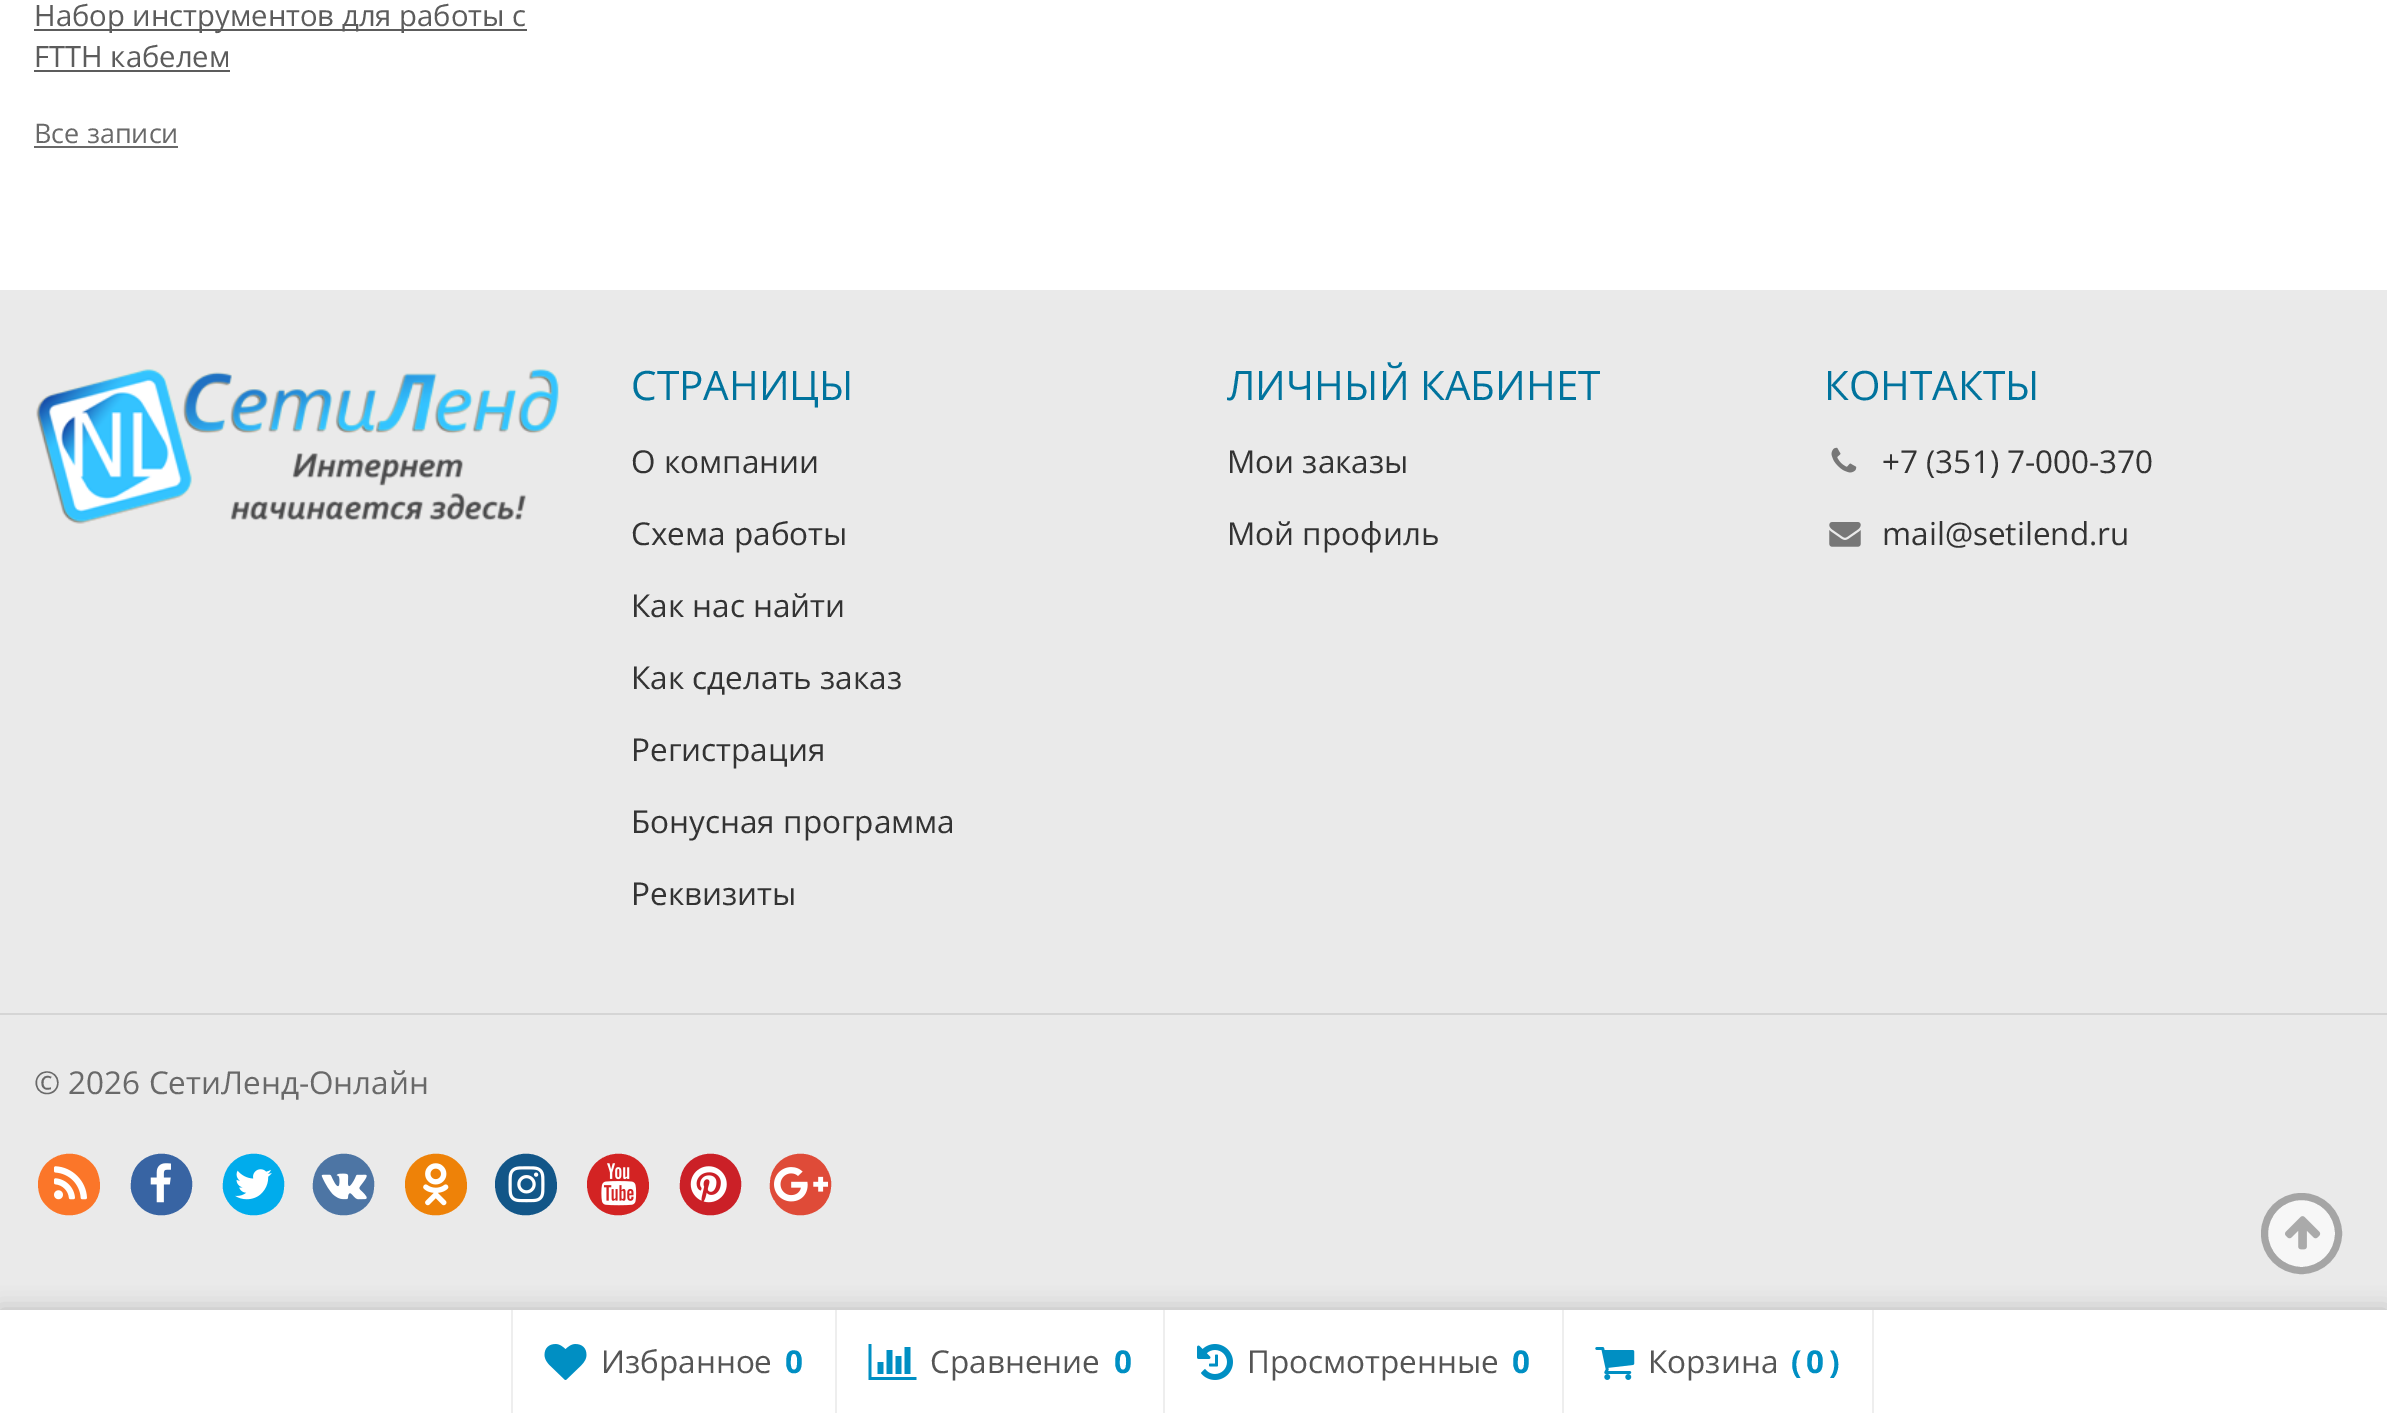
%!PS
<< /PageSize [2387 1413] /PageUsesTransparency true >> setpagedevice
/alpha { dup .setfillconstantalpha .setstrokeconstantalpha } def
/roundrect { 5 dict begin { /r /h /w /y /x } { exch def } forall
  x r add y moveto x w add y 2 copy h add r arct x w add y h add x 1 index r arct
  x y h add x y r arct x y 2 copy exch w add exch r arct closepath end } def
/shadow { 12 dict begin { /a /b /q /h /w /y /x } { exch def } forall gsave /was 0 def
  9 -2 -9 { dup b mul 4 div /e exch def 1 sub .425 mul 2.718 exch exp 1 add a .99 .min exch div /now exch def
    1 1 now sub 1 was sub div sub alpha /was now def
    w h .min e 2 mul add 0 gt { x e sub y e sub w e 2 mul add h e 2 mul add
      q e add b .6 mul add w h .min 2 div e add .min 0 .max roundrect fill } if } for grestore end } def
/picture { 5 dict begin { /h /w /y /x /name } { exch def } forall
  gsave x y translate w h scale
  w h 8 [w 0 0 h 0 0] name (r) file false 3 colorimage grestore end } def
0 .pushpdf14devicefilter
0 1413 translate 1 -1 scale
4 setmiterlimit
1 setgray
0 0 2387 1413 rectfill
0.361 setgray
34 29 493 2 rectfill
/OpenSans-Regular [29.25 0 0 -29.25 0 0] selectfont
34 26 moveto (Набор инструментов для работы с) show
34 67 moveto (FTTH кабелем) show
34 70 196 2 rectfill
/OpenSans-Regular [27 0 0 -27 0 0] selectfont
0.412 setgray
34 143 moveto (Все записи) show
34 146 144 2 rectfill
0.918 setgray
0 290 2387 1020 rectfill
(img1.rgb) 36 368 524 156 picture
/OpenSans-Regular [40.5 0 0 -40.5 0 0] selectfont
0 0.451 0.616 setrgbcolor
631 400 moveto (СТРАНИЦЫ) show
/OpenSans-Regular [31.5 0 0 -31.5 0 0] selectfont
0.2 setgray
631 473 moveto (О компании) show
631 545 moveto (Схема работы) show
631 617 moveto (Как нас найти) show
631 689 moveto (Как сделать заказ) show
631 761 moveto (Регистрация) show
631 833 moveto (Бонусная программа) show
631 905 moveto (Реквизиты) show
/OpenSans-Regular [40.5 0 0 -40.5 0 0] selectfont
0 0.451 0.616 setrgbcolor
1227 400 moveto (ЛИЧНЫЙ КАБИНЕТ) show
/OpenSans-Regular [31.5 0 0 -31.5 0 0] selectfont
0.2 setgray
1227 473 moveto (Мои заказы) show
1227 545 moveto (Мой профиль) show
/OpenSans-Regular [40.5 0 0 -40.5 0 0] selectfont
0 0.451 0.616 setrgbcolor
1824 400 moveto (КОНТАКТЫ) show
(img2.rgb) 1831 447 26 26 picture
/OpenSans-Regular [31.5 0 0 -31.5 0 0] selectfont
0.2 setgray
1882 473 moveto (+7 \(351\) 7-000-370) show
(img3.rgb) 1829 522 32 25 picture
1882 545 moveto (mail@setilend.ru) show
0.835 setgray
0 1013 2387 2 rectfill
0.412 setgray
34 1094 moveto (© 2026 СетиЛенд-Онлайн) show
0.984 0.463 0.161 setrgbcolor
newpath 96 1169 moveto 99 1175 100 1181 100 1187 curveto 98 1217 58 1226 42 1200 curveto 39 1195 38 1189 38 1183 curveto 40 1152 81 1143 96 1169 curveto closepath fill
(img4.rgb) 54 1166 33 34 picture
0.22 0.392 0.639 setrgbcolor
newpath 188 1169 moveto 191 1175 193 1181 192 1187 curveto 190 1217 150 1226 135 1200 curveto 132 1195 130 1189 131 1183 curveto 132 1152 173 1143 188 1169 curveto closepath fill
(img5.rgb) 150 1163 21 40 picture
0 0.675 0.925 setrgbcolor
newpath 280 1169 moveto 283 1175 285 1181 284 1187 curveto 283 1217 242 1226 227 1200 curveto 224 1195 222 1189 223 1183 curveto 225 1152 265 1143 280 1169 curveto closepath fill
(img6.rgb) 235 1169 37 31 picture
0.302 0.459 0.643 setrgbcolor
newpath 370 1169 moveto 373 1175 375 1181 374 1187 curveto 373 1217 332 1226 317 1200 curveto 314 1195 312 1189 313 1183 curveto 315 1152 355 1143 370 1169 curveto closepath fill
(img7.rgb) 321 1173 46 27 picture
0.933 0.51 0.031 setrgbcolor
newpath 463 1169 moveto 466 1175 467 1181 467 1187 curveto 465 1217 424 1226 409 1200 curveto 406 1195 405 1189 405 1183 curveto 407 1152 447 1143 463 1169 curveto closepath fill
(img8.rgb) 423 1163 26 43 picture
0.071 0.337 0.533 setrgbcolor
newpath 553 1169 moveto 556 1175 557 1181 557 1187 curveto 555 1217 514 1226 499 1200 curveto 496 1195 495 1189 495 1183 curveto 497 1152 537 1143 553 1169 curveto closepath fill
(img9.rgb) 508 1166 37 37 picture
0.827 0.137 0.137 setrgbcolor
newpath 645 1169 moveto 648 1175 649 1181 649 1187 curveto 647 1217 607 1226 591 1200 curveto 588 1195 587 1189 587 1183 curveto 589 1152 630 1143 645 1169 curveto closepath fill
(img10.rgb) 601 1163 36 43 picture
0.796 0.125 0.153 setrgbcolor
newpath 737 1169 moveto 740 1175 742 1181 741 1187 curveto 739 1217 699 1226 684 1200 curveto 681 1195 679 1189 680 1183 curveto 681 1152 722 1143 737 1169 curveto closepath fill
(img11.rgb) 690 1166 37 37 picture
0.875 0.294 0.22 setrgbcolor
newpath 827 1169 moveto 830 1175 832 1181 831 1187 curveto 829 1217 789 1226 774 1200 curveto 771 1195 769 1189 770 1183 curveto 771 1152 812 1143 827 1169 curveto closepath fill
(img12.rgb) 774 1167 54 35 picture
0.969 setgray
newpath 2301.5 1233.5 37 0 360 arc closepath gsave fill grestore
0.647 setgray
7 setlinewidth
stroke
(img13.rgb) 2285 1216 36 34 picture
0 setgray
0 1310 2387 103 0 11 0.2 shadow
1 setgray
0 1310 2387 103 rectfill
0.933 setgray
511 1310 2 103 rectfill
(img14.rgb) 544 1344 43 36 picture
0.333 setgray
601 1373 moveto (Избранное) show
/OpenSans-Bold [31.5 0 0 -31.5 0 0] selectfont
0 0.561 0.765 setrgbcolor
785 1373 moveto (0) show
0.933 setgray
835 1310 2 103 rectfill
(img15.rgb) 868 1344 49 36 picture
/OpenSans-Regular [31.5 0 0 -31.5 0 0] selectfont
0.333 setgray
930 1373 moveto (Сравнение) show
/OpenSans-Bold [31.5 0 0 -31.5 0 0] selectfont
0 0.561 0.765 setrgbcolor
1114 1373 moveto (0) show
0.933 setgray
1163 1310 2 103 rectfill
(img16.rgb) 1197 1344 36 36 picture
/OpenSans-Regular [31.5 0 0 -31.5 0 0] selectfont
0.333 setgray
1247 1373 moveto (Просмотренные) show
/OpenSans-Bold [31.5 0 0 -31.5 0 0] selectfont
0 0.561 0.765 setrgbcolor
1512 1373 moveto (0) show
0.933 setgray
1872 1310 2 103 rectfill
1562 1310 2 103 rectfill
(img17.rgb) 1595 1347 40 33 picture
/OpenSans-Regular [31.5 0 0 -31.5 0 0] selectfont
0.333 setgray
1648 1373 moveto (Корзина) show
/OpenSans-Bold [31.5 0 0 -31.5 0 0] selectfont
0 0.561 0.765 setrgbcolor
1791 1373 moveto (\() show
1806 1373 moveto (0) show
1829 1373 moveto (\)) show
.poppdf14devicefilter showpage
